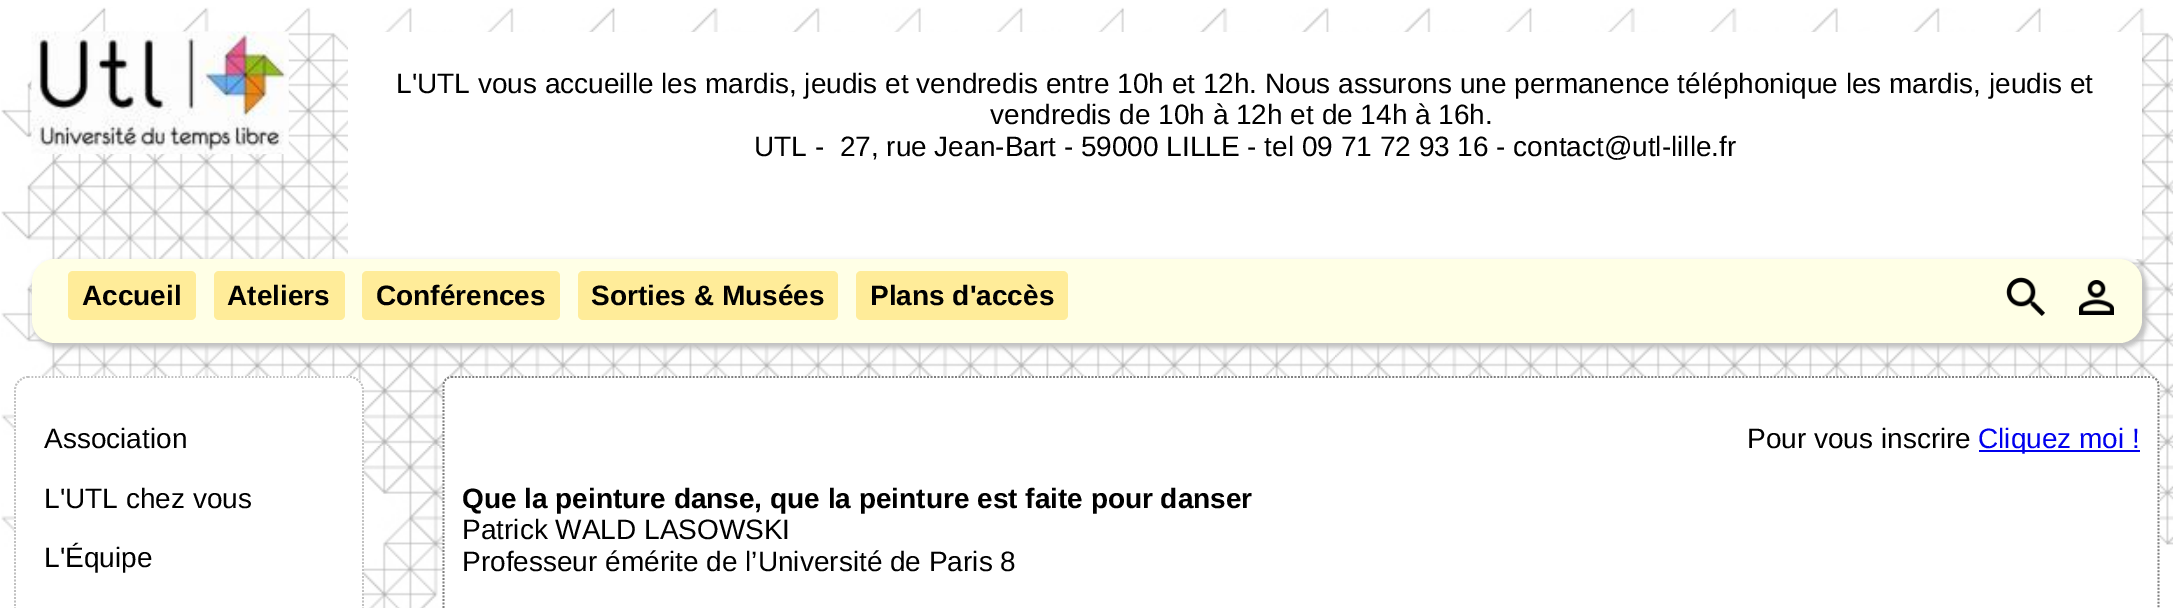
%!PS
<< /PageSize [2173 608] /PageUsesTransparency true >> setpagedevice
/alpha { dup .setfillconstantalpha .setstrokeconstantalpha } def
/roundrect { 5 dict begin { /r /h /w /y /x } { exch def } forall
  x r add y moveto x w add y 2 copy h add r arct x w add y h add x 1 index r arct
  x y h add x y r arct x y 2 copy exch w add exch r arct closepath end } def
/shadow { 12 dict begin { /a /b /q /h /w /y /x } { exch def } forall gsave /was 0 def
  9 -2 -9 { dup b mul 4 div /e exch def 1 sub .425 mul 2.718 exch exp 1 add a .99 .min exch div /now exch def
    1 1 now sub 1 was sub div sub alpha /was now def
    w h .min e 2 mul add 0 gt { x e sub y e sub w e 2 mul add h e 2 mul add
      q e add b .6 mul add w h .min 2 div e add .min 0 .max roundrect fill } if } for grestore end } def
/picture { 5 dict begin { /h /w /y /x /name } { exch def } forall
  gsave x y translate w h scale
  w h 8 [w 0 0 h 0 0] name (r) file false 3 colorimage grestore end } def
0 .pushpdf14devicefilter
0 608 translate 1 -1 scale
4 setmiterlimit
1 setgray
0 0 2173 608 rectfill
(img1.rgb) 1 7 2172 601 picture
(img2.rgb) 31 31 258 123 picture
348 32 1794 227 rectfill
/LiberationSans-Regular [28 0 0 -28 0 0] selectfont
0 setgray
396 93 moveto (L'UTL vous accueille les mardis, jeudis et vendredis entre 10h et 12h. Nous assurons une permanence téléphonique les mardis, jeudis et) show
990 124 moveto (vendredis de 10h à 12h et de 14h à 16h.) show
754 156 moveto (UTL -  27, rue Jean-Bart - 59000 LILLE - tel 09 71 72 93 16 - contact@utl-lille.fr) show
0.753 setgray
33 261 2114 87 25 2.5 1 shadow
1 1 0.902 setrgbcolor
32 259 2110 84 23 roundrect fill
1 0.925 0.6 setrgbcolor
68 271 128 49 5 roundrect fill
/LiberationSans-Bold [28 0 0 -28 0 0] selectfont
0 setgray
82 305 moveto (Accueil) show
1 0.925 0.6 setrgbcolor
214 271 131 49 5 roundrect fill
0 setgray
227 305 moveto (Ateliers) show
1 0.925 0.6 setrgbcolor
362 271 198 49 5 roundrect fill
0 setgray
376 305 moveto (Conférences) show
1 0.925 0.6 setrgbcolor
578 271 260 49 5 roundrect fill
0 setgray
591 305 moveto (Sorties & Musées) show
1 0.925 0.6 setrgbcolor
856 271 212 49 5 roundrect fill
0 setgray
870 305 moveto (Plans d'accès) show
(img3.rgb) 2006 277 39 39 picture
1 1 0.902 setrgbcolor
2120 342 3 1 rectfill
(img4.rgb) 2079 280 35 35 picture
1 setgray
14 376 350 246 14 roundrect fill
0.753 setgray
1.8 setlinewidth
[1.75 1.75] 0 setdash
newpath 28 377 moveto 350 377 lineto 357 377 363 383 363 390 curveto 363 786 lineto 363 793 357 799 350 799 curveto 28 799 lineto 21 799 15 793 15 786 curveto 15 390 lineto 15 383 21 377 28 377 curveto closepath stroke
/LiberationSans-Regular [28 0 0 -28 0 0] selectfont
0 setgray
44 448 moveto (Association) show
44 508 moveto (L'UTL chez vous) show
44 567 moveto (L'Équipe) show
1 setgray
443 376 1717 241 9 roundrect fill
0.502 setgray
newpath 451.5 377 moveto 2151 377 lineto 2155 377 2158.5 380.5 2158.5 385 curveto 2158.5 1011.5 lineto 2158.5 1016 2155 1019.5 2151 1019.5 curveto 451.5 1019.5 lineto 447 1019.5 443.5 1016 443.5 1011.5 curveto 443.5 385 lineto 443.5 380.5 447 377 451.5 377 curveto closepath stroke
0 setgray
1747 448 moveto (Pour vous inscrire) show
0 0 0.933 setrgbcolor
1979 450 161 2 rectfill
1978 448 moveto (Cliquez moi !) show
/LiberationSans-Bold [28 0 0 -28 0 0] selectfont
0 setgray
462 508 moveto (Que la peinture danse, que la peinture est faite pour danser) show
/LiberationSans-Regular [28 0 0 -28 0 0] selectfont
462 539 moveto (Patrick WALD LASOWSKI) show
462 571 moveto (Professeur émérite de l’Université de Paris 8) show
.poppdf14devicefilter showpage
